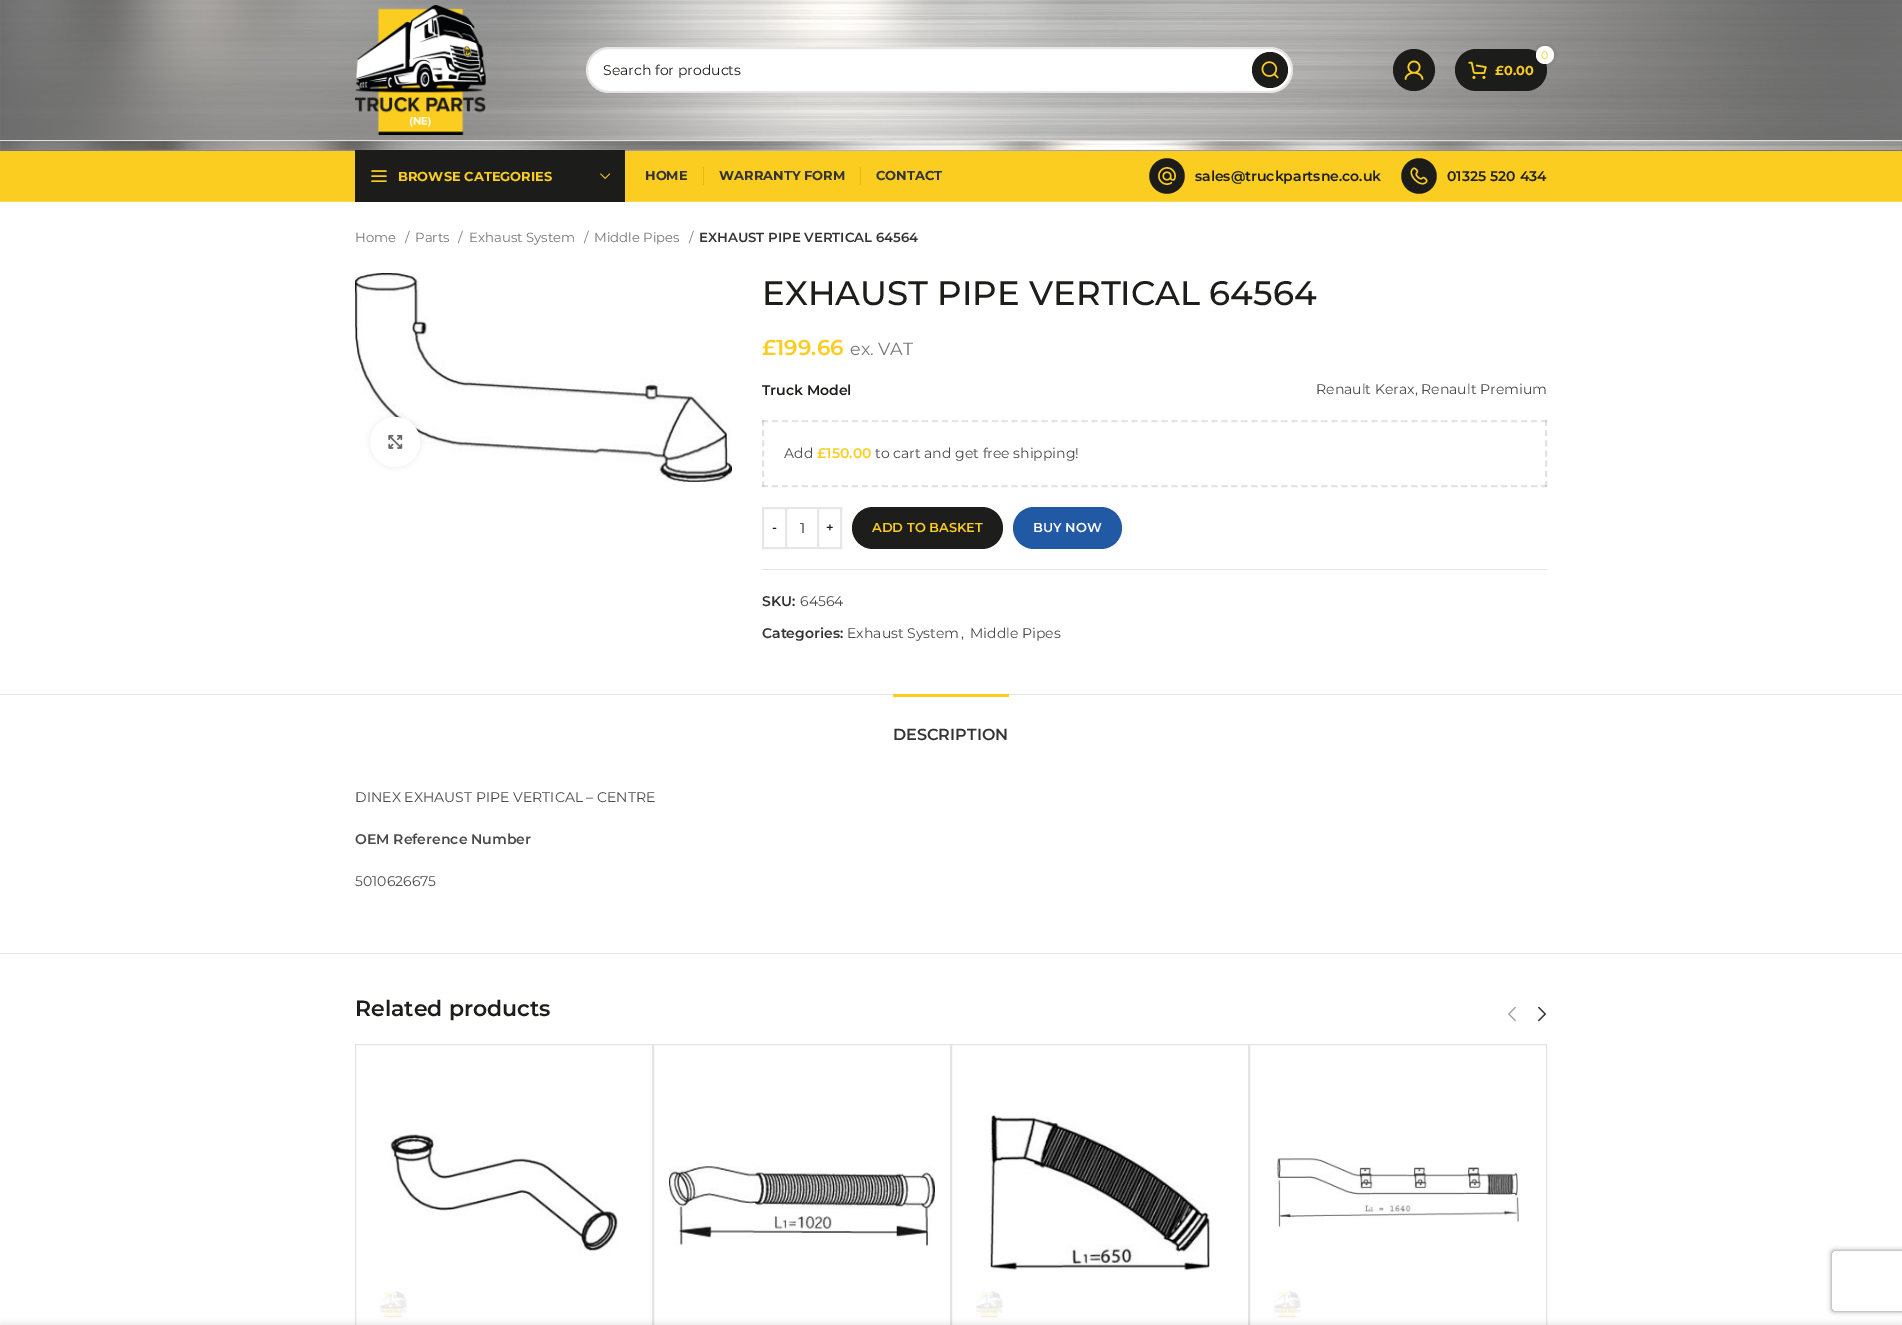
%!PS
<< /PageSize [1902 1325] /PageUsesTransparency true >> setpagedevice
/alpha { dup .setfillconstantalpha .setstrokeconstantalpha } def
/roundrect { 5 dict begin { /r /h /w /y /x } { exch def } forall
  x r add y moveto x w add y 2 copy h add r arct x w add y h add x 1 index r arct
  x y h add x y r arct x y 2 copy exch w add exch r arct closepath end } def
/shadow { 12 dict begin { /a /b /q /h /w /y /x } { exch def } forall gsave /was 0 def
  9 -2 -9 { dup b mul 4 div /e exch def 1 sub .425 mul 2.718 exch exp 1 add a .99 .min exch div /now exch def
    1 1 now sub 1 was sub div sub alpha /was now def
    w h .min e 2 mul add 0 gt { x e sub y e sub w e 2 mul add h e 2 mul add
      q e add b .6 mul add w h .min 2 div e add .min 0 .max roundrect fill } if } for grestore end } def
/picture { 5 dict begin { /h /w /y /x /name } { exch def } forall
  gsave x y translate w h scale
  w h 8 [w 0 0 h 0 0] name (r) file false 3 colorimage grestore end } def
0 .pushpdf14devicefilter
0 1325 translate 1 -1 scale
4 setmiterlimit
1 setgray
0 0 1902 1325 rectfill
(img1.rgb) 0 0 1902 151 picture
0.2 alpha
0.506 setgray
0 150 1902 1 rectfill
1 alpha
(img2.rgb) 355 5 131 130 picture
1 setgray
586 47 707 46 23 roundrect fill
0.1 alpha
0 setgray
2 setlinewidth
587 48 705 44 22 roundrect stroke
/Montserrat-Regular [14 0 0 -14 0 0] selectfont
1 alpha
0.114 0.114 0.106 setrgbcolor
603 75 moveto (Search for products) show
0.11 0.11 0.106 setrgbcolor
newpath 1270 70 18 0 360 arc closepath fill
(img3.rgb) 1261 61 18 18 picture
newpath 1414 70 21 0 360 arc closepath fill
(img4.rgb) 1404 60 20 20 picture
1455 49 92 42 21 roundrect fill
0 setgray
1536 46 18 18 9 2 0.17 shadow
1 setgray
newpath 1545 55 9 0 360 arc closepath fill
/Montserrat-Regular [11 0 0 -11 0 0] selectfont
0.984 0.804 0.125 setrgbcolor
1541 59 moveto (0) show
(img5.rgb) 1468 61 19 18 picture
/Montserrat-Bold [13 0 0 -13 0 0] selectfont
1495 75 moveto (£0.00) show
(img6.rgb) 0 141 1902 9 picture
0.875 0.875 0.871 setrgbcolor
0 140 1902 1 rectfill
0.984 0.804 0.125 setrgbcolor
0 151 1902 50 rectfill
0.988 0.843 0.302 setrgbcolor
0 201 1902 1 rectfill
0.11 0.11 0.106 setrgbcolor
355 150 270 52 rectfill
(img7.rgb) 371 170 16 12 picture
0.984 0.804 0.125 setrgbcolor
398 181 moveto (BROWSE CATEGORIES) show
(img8.rgb) 600 173 11 6 picture
0.2 setgray
645 180 moveto (HOME) show
0.878 0.718 0.114 setrgbcolor
703 167 1 18 rectfill
0.2 setgray
719 180 moveto (WARRANTY FORM) show
0.878 0.718 0.114 setrgbcolor
860 167 1 18 rectfill
0.2 setgray
876 180 moveto (CONTACT) show
(img9.rgb) 1149 158 36 36 picture
/Montserrat-SemiBold [14 0 0 -14 0 0] selectfont
0.114 0.114 0.106 setrgbcolor
1195 181 moveto (sales@truckpartsne.co.uk) show
(img10.rgb) 1401 158 36 36 picture
1447 181 moveto (01325 520 434) show
/Montserrat-Regular [13.25 0 0 -13.25 0 0] selectfont
0.467 setgray
355 242 moveto (Home) show
405 242 moveto (/) show
415 242 moveto (Parts) show
458 242 moveto (/) show
469 242 moveto (Exhaust System) show
584 242 moveto (/) show
594 242 moveto (Middle Pipes) show
689 242 moveto (/) show
/Montserrat-SemiBold [13.25 0 0 -13.25 0 0] selectfont
0.2 setgray
699 242 moveto (EXHAUST PIPE VERTICAL 64564) show
(img11.rgb) 355 273 377 209 picture
0 setgray
370 417 50 50 25 2.5 0.08 shadow
1 setgray
newpath 395 442 25 0 360 arc closepath fill
(img12.rgb) 388 434 15 15 picture
/Montserrat-Medium [34 0 0 -34 0 0] selectfont
0.114 0.114 0.106 setrgbcolor
762 305 moveto (EXHAUST PIPE VERTICAL 64564) show
/Montserrat-SemiBold [21.5 0 0 -21.5 0 0] selectfont
0.984 0.804 0.125 setrgbcolor
762 355 moveto (£199.66) show
/Montserrat-Regular [17.5 0 0 -17.5 0 0] selectfont
0.467 setgray
850 355 moveto (ex. VAT) show
/Montserrat-SemiBold [14 0 0 -14 0 0] selectfont
0.114 0.114 0.106 setrgbcolor
762 395 moveto (Truck Model) show
/Montserrat-Regular [14 0 0 -14 0 0] selectfont
0.286 setgray
1316 394 moveto (Renault Kerax, Renault Premium) show
0.894 setgray
[6 3.99] 0 setdash
newpath 762 421 moveto 1547 421 lineto stroke
0.11 alpha
0 setgray
[6 4.17] 0 setdash
newpath 1546 420 moveto 1546 487 lineto stroke
[6 3.99] 0 setdash
newpath 762 486 moveto 1547 486 lineto stroke
[6 4.17] 0 setdash
newpath 763 420 moveto 763 487 lineto stroke
1 alpha
0.286 setgray
784 458 moveto (Add) show
/Montserrat-SemiBold [14 0 0 -14 0 0] selectfont
0.984 0.804 0.125 setrgbcolor
817 458 moveto (£150.00) show
/Montserrat-Regular [14 0 0 -14 0 0] selectfont
0.286 setgray
875 458 moveto (to cart and get free shipping!) show
0.902 setgray
[] 0 setdash
763 508 23 40 rectstroke
/Montserrat-SemiBold [13 0 0 -13 0 0] selectfont
0.114 0.114 0.106 setrgbcolor
772 532 moveto (-) show
0.902 setgray
787 507 30 2 rectfill
787 547 30 2 rectfill
/Montserrat-Regular [14 0 0 -14 0 0] selectfont
0.114 0.114 0.106 setrgbcolor
800 533 moveto (1) show
0.902 setgray
818 508 23 40 rectstroke
/Montserrat-SemiBold [13 0 0 -13 0 0] selectfont
0.114 0.114 0.106 setrgbcolor
826 532 moveto (+) show
852 507 151 42 21 roundrect fill
0.984 0.804 0.125 setrgbcolor
872 532 moveto (ADD TO BASKET) show
0.133 0.349 0.647 setrgbcolor
1013 507 109 42 21 roundrect fill
1 setgray
1033 532 moveto (BUY NOW) show
0.894 setgray
762 569 785 1 rectfill
/Montserrat-SemiBold [14 0 0 -14 0 0] selectfont
0.2 setgray
762 606 moveto (SKU:) show
/Montserrat-Regular [14 0 0 -14 0 0] selectfont
0.286 setgray
800 606 moveto (64564) show
/Montserrat-SemiBold [14 0 0 -14 0 0] selectfont
0.2 setgray
762 638 moveto (Categories:) show
/Montserrat-Regular [14 0 0 -14 0 0] selectfont
0.286 setgray
847 638 moveto (Exhaust System) show
961 638 moveto (,) show
970 638 moveto (Middle Pipes) show
0.894 setgray
0 694 1902 1 rectfill
0 953 1902 1 rectfill
0.984 0.804 0.125 setrgbcolor
893 694 116 3 rectfill
/Montserrat-SemiBold [16 0 0 -16 0 0] selectfont
0.2 setgray
893 740 moveto (DESCRIPTION) show
/Montserrat-Regular [14 0 0 -14 0 0] selectfont
0.286 setgray
355 802 moveto (DINEX EXHAUST PIPE VERTICAL – CENTRE) show
/Montserrat-SemiBold [14 0 0 -14 0 0] selectfont
355 844 moveto (OEM Reference Number) show
/Montserrat-Regular [14 0 0 -14 0 0] selectfont
355 886 moveto (5010626675) show
/Montserrat-SemiBold [22 0 0 -22 0 0] selectfont
0.114 0.114 0.106 setrgbcolor
355 1016 moveto (Related products) show
(img13.rgb) 1508 1006 8 16 picture
(img14.rgb) 1538 1006 8 16 picture
0.894 setgray
1 setlinewidth
355.5 1044.5 297 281 rectstroke
(img15.rgb) 380 1134 238 185 picture
653.5 1044.5 297 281 rectstroke
(img16.rgb) 669 1166 266 80 picture
951.5 1044.5 297 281 rectstroke
(img17.rgb) 976 1115 234 204 picture
1249.5 1044.5 297 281 rectstroke
(img18.rgb) 1274 1158 245 161 picture
gsave
newpath 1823 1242 moveto 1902 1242 lineto 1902 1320 lineto 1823 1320 lineto closepath 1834 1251 moveto 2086 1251 lineto 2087 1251 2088 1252 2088 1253 curveto 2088 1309 lineto 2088 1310 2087 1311 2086 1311 curveto 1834 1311 lineto 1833 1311 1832 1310 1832 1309 curveto 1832 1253 lineto 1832 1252 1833 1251 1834 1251 curveto closepath eoclip newpath
0.502 setgray
1832 1251 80 60 2 2.5 1 shadow
grestore
0 setgray
0 1325 1902 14 0 4.5 0.12 shadow
.poppdf14devicefilter showpage
